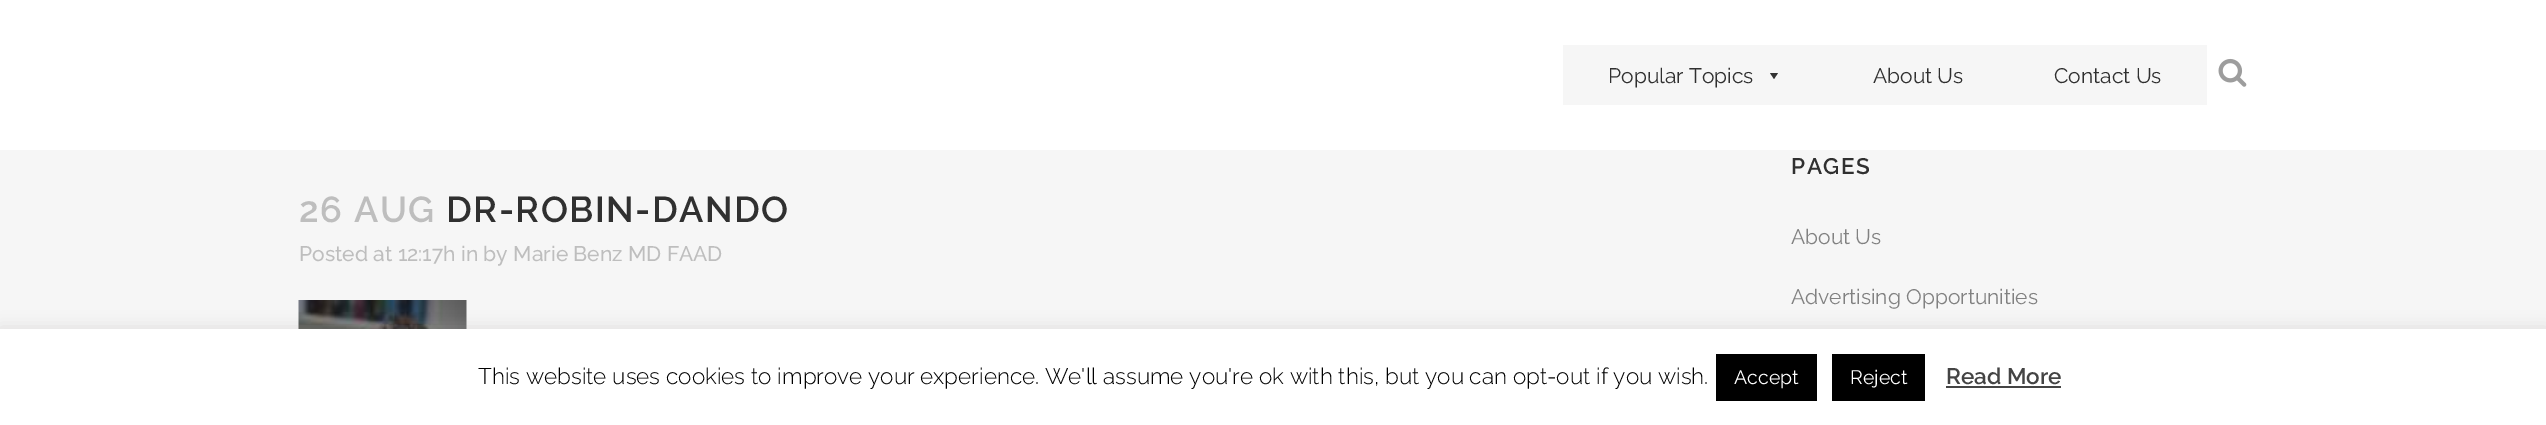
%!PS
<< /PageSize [2546 425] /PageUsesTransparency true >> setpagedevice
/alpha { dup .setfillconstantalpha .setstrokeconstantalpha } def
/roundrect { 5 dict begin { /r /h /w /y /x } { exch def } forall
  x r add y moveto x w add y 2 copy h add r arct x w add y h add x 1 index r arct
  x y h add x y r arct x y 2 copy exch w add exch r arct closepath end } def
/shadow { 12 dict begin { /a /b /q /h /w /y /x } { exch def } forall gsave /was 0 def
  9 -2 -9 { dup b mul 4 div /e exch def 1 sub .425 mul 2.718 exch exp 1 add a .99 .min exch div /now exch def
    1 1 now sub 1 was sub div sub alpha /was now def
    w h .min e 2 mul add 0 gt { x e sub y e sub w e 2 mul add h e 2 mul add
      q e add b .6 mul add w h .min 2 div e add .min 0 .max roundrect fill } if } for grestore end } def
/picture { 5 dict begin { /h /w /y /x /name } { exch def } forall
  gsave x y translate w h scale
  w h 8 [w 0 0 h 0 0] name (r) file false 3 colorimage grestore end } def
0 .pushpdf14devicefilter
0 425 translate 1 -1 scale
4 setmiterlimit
0.965 setgray
0 0 2546 425 rectfill
1 setgray
0 0 2546 150 rectfill
0.965 setgray
1563 45 644 60 rectfill
/Raleway-Regular [21 0 0 -21 0 0] selectfont
0.188 setgray
1608 83 moveto (Popular Topics) show
0.2 setgray
newpath 1778 73 moveto 1774 79 lineto 1770 73 lineto closepath fill
0.188 setgray
1873 83 moveto (About Us) show
2054 83 moveto (Contact Us) show
(img1.rgb) 2218 58 29 29 picture
/Raleway-SemiBold [36 0 0 -36 0 0] selectfont
0.745 setgray
299 222 moveto 1.5 0 (26 AUG) ashow
0.188 setgray
446 222 moveto 1.5 0 (DR-ROBIN-DANDO) ashow
/Raleway-Medium [21 0 0 -21 0 0] selectfont
0.745 setgray
299 261 moveto (Posted at 12:17h in by Marie Benz MD FAAD) show
(img2.rgb) 298 300 169 29 picture
/Raleway-SemiBold [22.5 0 0 -22.5 0 0] selectfont
0.188 setgray
1791 174 moveto 1.5 0 (PAGES) ashow
/Raleway-Regular [21 0 0 -21 0 0] selectfont
0.506 setgray
1791 244 moveto (About Us) show
1791 304 moveto (Advertising Opportunities) show
0.675 0.671 0.671 setrgbcolor
0 327 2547 98 0 7.5 0.3 shadow
1 setgray
0 329 2546 96 rectfill
/Raleway-Light [22.5 0 0 -22.5 0 0] selectfont
0 setgray
478 384 moveto (This website uses cookies to improve your experience. We'll assume you're ok with this, but you can opt-out if you wish.) show
1716 354 101 47 rectfill
/Raleway-Regular [19.5 0 0 -19.5 0 0] selectfont
1 setgray
1734 384 moveto (Accept) show
0 setgray
1832 354 93 47 rectfill
1 setgray
1850 384 moveto (Reject) show
/Raleway-SemiBold [22.5 0 0 -22.5 0 0] selectfont
0.267 setgray
1946 384 moveto (Read More) show
1946 386 115 2 rectfill
.poppdf14devicefilter showpage
